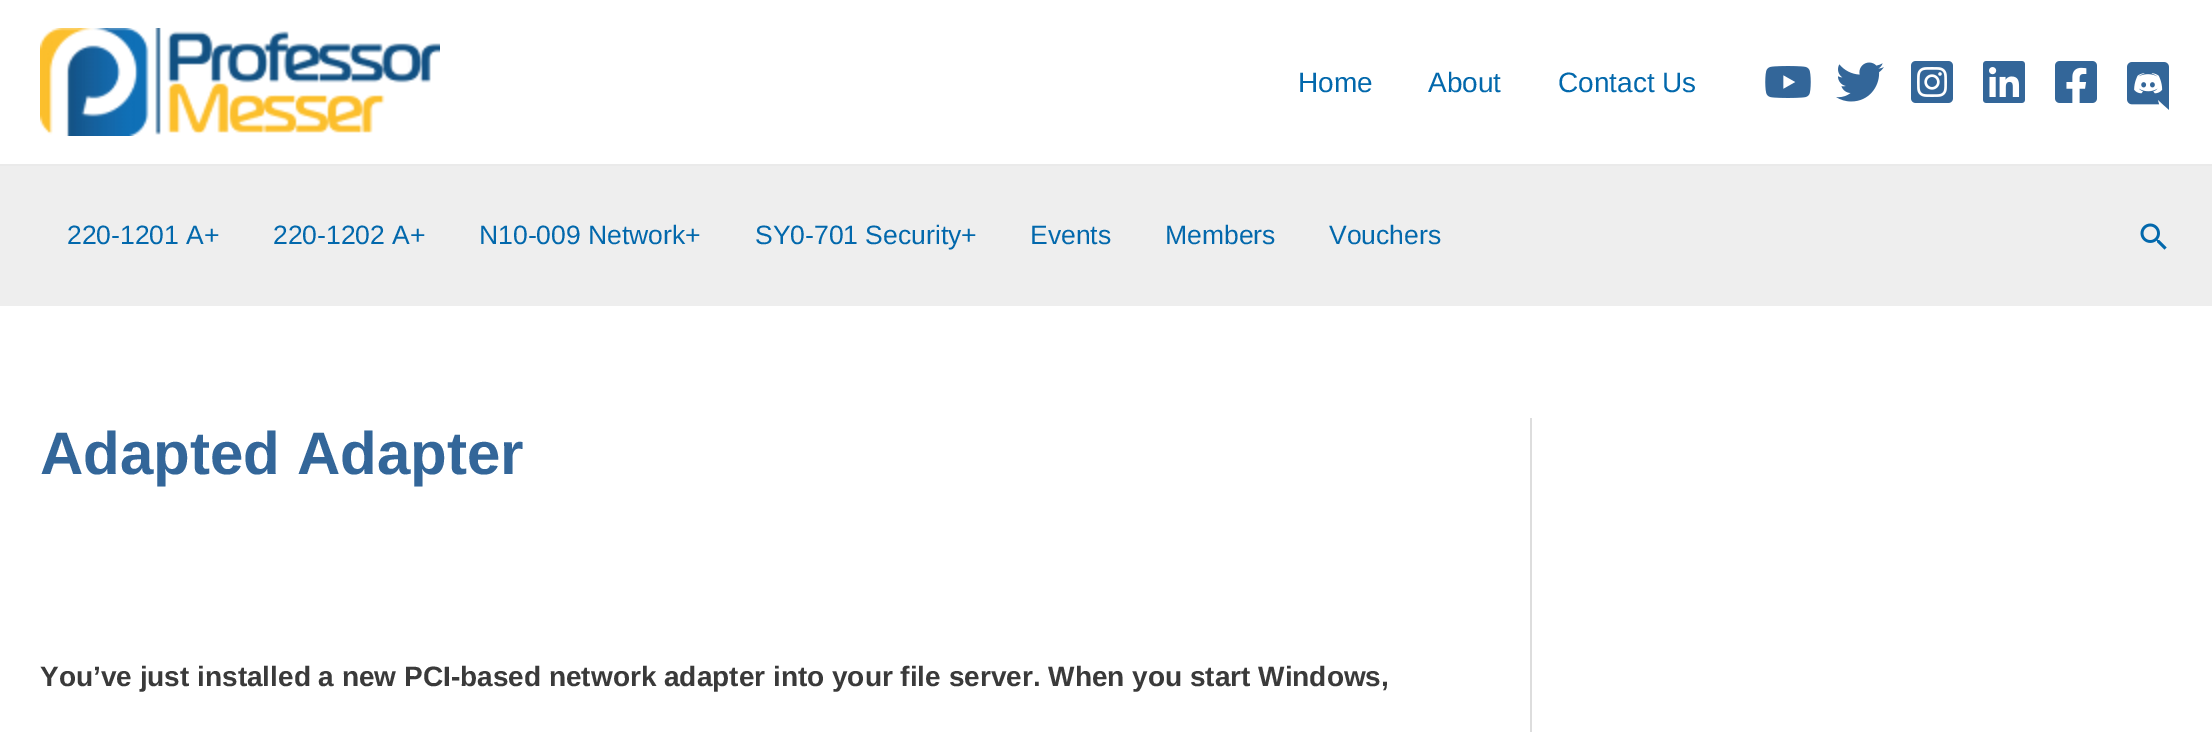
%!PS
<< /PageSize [2212 732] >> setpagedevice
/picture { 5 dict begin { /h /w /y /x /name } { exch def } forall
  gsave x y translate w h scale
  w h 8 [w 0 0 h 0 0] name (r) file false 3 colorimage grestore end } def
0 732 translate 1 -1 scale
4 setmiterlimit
1 setgray
0 0 2212 732 rectfill
0.918 setgray
0 164 2212 2 rectfill
(img1.rgb) 40 28 400 108 picture
/LiberationSans-Regular [28 0 0 -28 0 0] selectfont
0.008 0.408 0.675 setrgbcolor
1298 92 moveto (Home) show
1428 92 moveto (About) show
1558 92 moveto (Contact Us) show
(img2.rgb) 1765 66 46 32 picture
(img3.rgb) 1836 62 48 40 picture
(img4.rgb) 1911 61 42 42 picture
(img5.rgb) 1983 61 42 42 picture
(img6.rgb) 2055 61 42 42 picture
(img7.rgb) 2127 62 42 48 picture
0.933 setgray
0 166 2212 140 rectfill
/LiberationSans-Regular [26.5 0 0 -26.5 0 0] selectfont
0.008 0.408 0.675 setrgbcolor
67 244 moveto (220-1201 A+) show
273 244 moveto (220-1202 A+) show
479 244 moveto (N10-009 Network+) show
755 244 moveto (SY0-701 Security+) show
1030 244 moveto (Events) show
1165 244 moveto (Members) show
1329 244 moveto (Vouchers) show
(img8.rgb) 2140 223 27 27 picture
0.867 setgray
1530 418 2 314 rectfill
/LiberationSans-Bold [60 0 0 -60 0 0] selectfont
0.2 0.4 0.6 setrgbcolor
40 474 moveto (Adapted Adapter) show
/LiberationSans-Bold [28 0 0 -28 0 0] selectfont
0.227 setgray
40 686 moveto (You’ve just installed a new PCI-based network adapter into your file server. When you start Windows,) show
showpage
